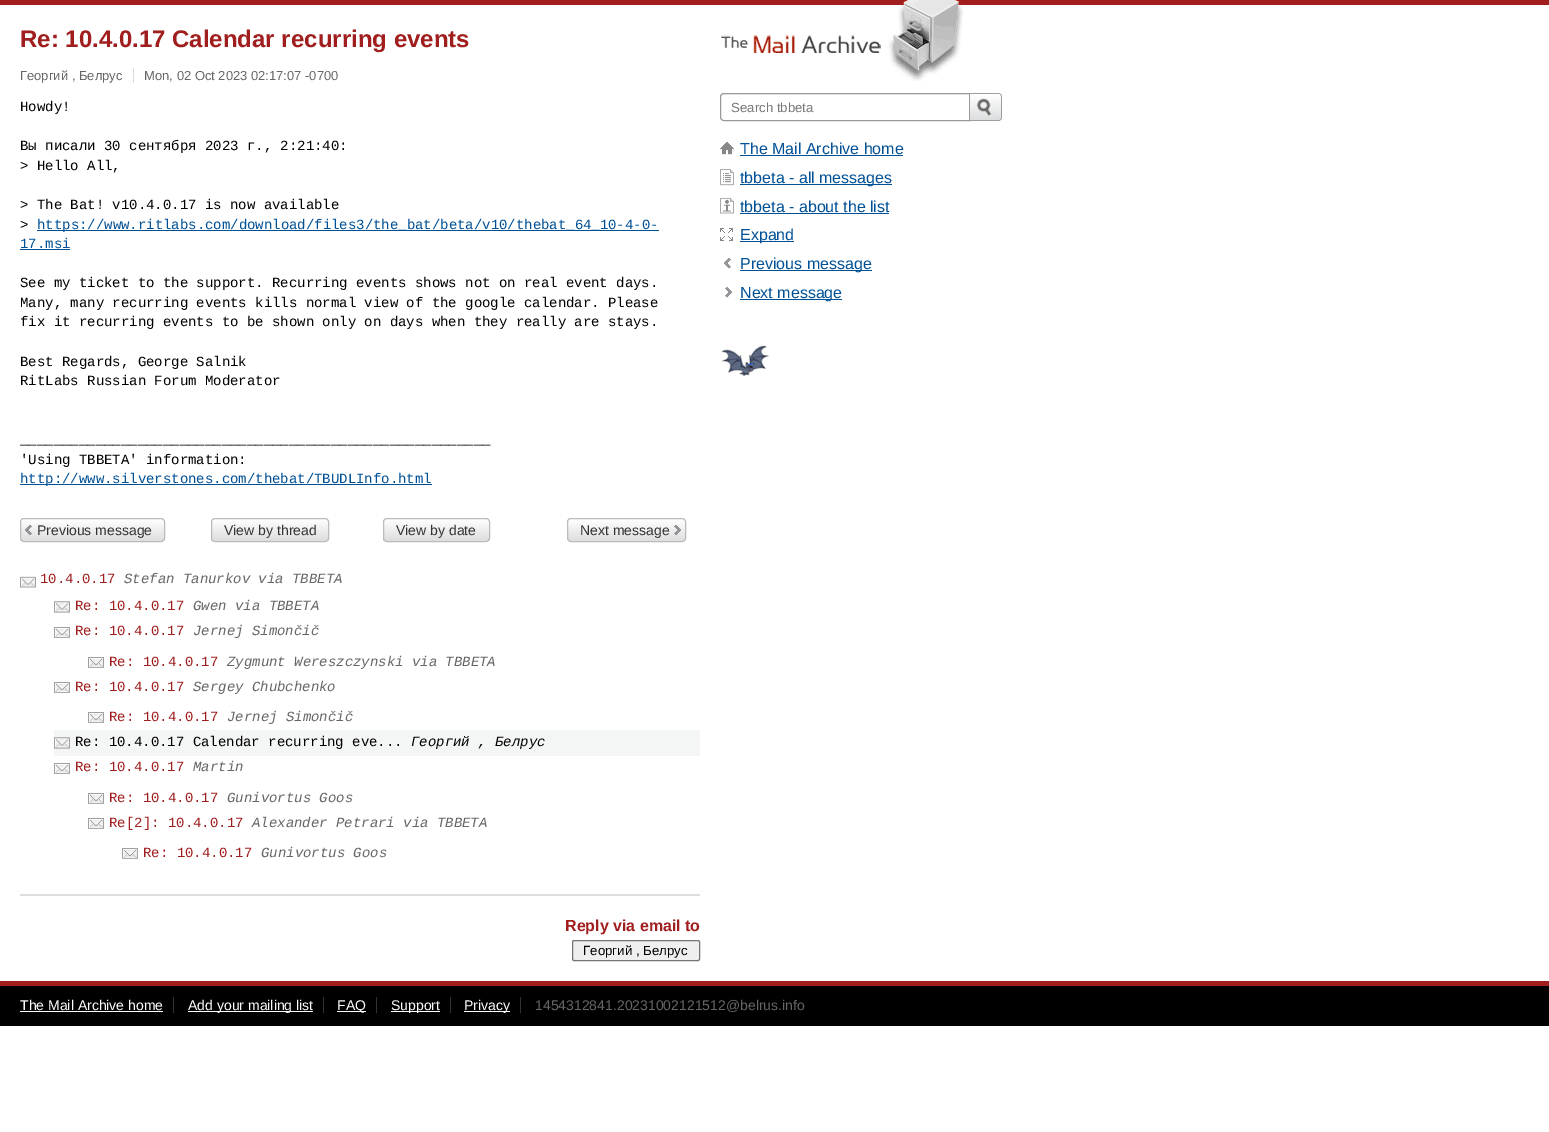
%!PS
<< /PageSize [1549 1132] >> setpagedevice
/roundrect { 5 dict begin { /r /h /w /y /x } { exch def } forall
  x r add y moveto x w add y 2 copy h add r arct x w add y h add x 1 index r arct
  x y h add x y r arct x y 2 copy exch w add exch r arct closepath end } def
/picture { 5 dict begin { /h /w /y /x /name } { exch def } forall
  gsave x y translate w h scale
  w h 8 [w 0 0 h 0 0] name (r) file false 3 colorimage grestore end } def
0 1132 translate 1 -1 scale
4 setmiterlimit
1 setgray
0 0 1549 1132 rectfill
0.627 0.118 0.118 setrgbcolor
0 0 1549 5 rectfill
/LiberationSans-Bold [24 0 0 -24 0 0] selectfont
20 47 moveto (Re: 10.4.0.17 Calendar recurring events) show
/LiberationSans-Regular [13 0 0 -13 0 0] selectfont
0.4 setgray
20 80 moveto (Георгий , Белрус) show
0.867 setgray
133 68 1 15 rectfill
0.4 setgray
144 80 moveto (Mon, 02 Oct 2023 02:17:07 -0700) show
/LiberationMono-Regular [14 0 0 -14 0 0] selectfont
0 setgray
20 111 moveto (Howdy!) show
20 150 moveto (Вы писали 30 сентября 2023 г., 2:21:40:) show
20 170 moveto (> Hello All,) show
20 209 moveto (> The Bat! v10.4.0.17 is now available) show
20 229 moveto (>) show
0 0.314 0.588 setrgbcolor
37 230 622 1 rectfill
37 229 moveto (https://www.ritlabs.com/download/files3/the_bat/beta/v10/thebat_64_10-4-0-) show
20 248 moveto (17.msi) show
20 249 50 1 rectfill
0 setgray
20 287 moveto (See my ticket to the support. Recurring events shows not on real event days.) show
20 307 moveto (Many, many recurring events kills normal view of the google calendar. Please) show
20 326 moveto (fix it recurring events to be shown only on days when they really are stays.) show
20 366 moveto (Best Regards, George Salnik) show
20 385 moveto (RitLabs Russian Forum Moderator) show
20 444 moveto (________________________________________________________) show
20 464 moveto ('Using TBBETA' information:) show
0 0.314 0.588 setrgbcolor
20 484 412 1 rectfill
20 483 moveto (http://www.silverstones.com/thebat/TBUDLInfo.html) show
(img1.rgb) 20 518 145 24 picture
0.733 setgray
20.5 518.5 144 23 3.5 roundrect stroke
/LiberationSans-Regular [14 0 0 -14 0 0] selectfont
0.2 setgray
37 535 moveto (Previous message) show
gsave
211 518 118 24 4 roundrect clip newpath
gsave newpath 211 519 moveto 329 519 lineto 329 541 lineto 211 541 lineto closepath clip newpath
<< /ShadingType 2 /ColorSpace /DeviceRGB /Coords [270 519 270 541] /Extend [true true] /Function << /FunctionType 2 /Domain [0 1] /C0 [1 1 1] /C1 [0.867 0.867 0.867] /N 1 >> >> shfill grestore
grestore
0.733 setgray
211.5 518.5 117 23 3.5 roundrect stroke
0.2 setgray
224 535 moveto (View by thread) show
gsave
383 518 107 24 4 roundrect clip newpath
gsave newpath 383 519 moveto 490 519 lineto 490 541 lineto 383 541 lineto closepath clip newpath
<< /ShadingType 2 /ColorSpace /DeviceRGB /Coords [437 519 437 541] /Extend [true true] /Function << /FunctionType 2 /Domain [0 1] /C0 [1 1 1] /C1 [0.867 0.867 0.867] /N 1 >> >> shfill grestore
grestore
0.733 setgray
383.5 518.5 106 23 3.5 roundrect stroke
0.2 setgray
396 535 moveto (View by date) show
(img2.rgb) 567 518 119 24 picture
0.733 setgray
567.5 518.5 118 23 3.5 roundrect stroke
0.2 setgray
580 535 moveto (Next message) show
(img3.rgb) 20 576 16 12 picture
/LiberationMono-Regular [14 0 0 -14 0 0] selectfont
0.627 0.118 0.118 setrgbcolor
40 583 moveto (10.4.0.17) show
/LiberationMono-Italic [14 0 0 -14 0 0] selectfont
0.4 setgray
124 583 moveto (Stefan Tanurkov via TBBETA) show
(img4.rgb) 54 601 16 12 picture
/LiberationMono-Regular [14 0 0 -14 0 0] selectfont
0.627 0.118 0.118 setrgbcolor
75 610 moveto (Re: 10.4.0.17) show
/LiberationMono-Italic [14 0 0 -14 0 0] selectfont
0.4 setgray
193 610 moveto (Gwen via TBBETA) show
(img5.rgb) 54 627 16 11 picture
/LiberationMono-Regular [14 0 0 -14 0 0] selectfont
0.627 0.118 0.118 setrgbcolor
75 635 moveto (Re: 10.4.0.17) show
/LiberationMono-Italic [14 0 0 -14 0 0] selectfont
0.4 setgray
193 635 moveto (Jernej Simončič) show
(img5.rgb) 88 657 16 11 picture
/LiberationMono-Regular [14 0 0 -14 0 0] selectfont
0.627 0.118 0.118 setrgbcolor
109 666 moveto (Re: 10.4.0.17) show
/LiberationMono-Italic [14 0 0 -14 0 0] selectfont
0.4 setgray
227 666 moveto (Zygmunt Wereszczynski via TBBETA) show
(img5.rgb) 54 682 16 11 picture
/LiberationMono-Regular [14 0 0 -14 0 0] selectfont
0.627 0.118 0.118 setrgbcolor
75 691 moveto (Re: 10.4.0.17) show
/LiberationMono-Italic [14 0 0 -14 0 0] selectfont
0.4 setgray
193 691 moveto (Sergey Chubchenko) show
(img5.rgb) 88 712 16 11 picture
/LiberationMono-Regular [14 0 0 -14 0 0] selectfont
0.627 0.118 0.118 setrgbcolor
109 721 moveto (Re: 10.4.0.17) show
/LiberationMono-Italic [14 0 0 -14 0 0] selectfont
0.4 setgray
227 721 moveto (Jernej Simončič) show
0.957 0.961 0.961 setrgbcolor
54 730 646 26 rectfill
(img6.rgb) 54 737 16 12 picture
/LiberationMono-Regular [14 0 0 -14 0 0] selectfont
0 setgray
75 746 moveto (Re: 10.4.0.17 Calendar recurring eve...) show
/LiberationMono-Italic [14 0 0 -14 0 0] selectfont
411 746 moveto (Георгий , Белрус) show
(img5.rgb) 54 763 16 11 picture
/LiberationMono-Regular [14 0 0 -14 0 0] selectfont
0.627 0.118 0.118 setrgbcolor
75 771 moveto (Re: 10.4.0.17) show
/LiberationMono-Italic [14 0 0 -14 0 0] selectfont
0.4 setgray
193 771 moveto (Martin) show
(img5.rgb) 88 793 16 11 picture
/LiberationMono-Regular [14 0 0 -14 0 0] selectfont
0.627 0.118 0.118 setrgbcolor
109 802 moveto (Re: 10.4.0.17) show
/LiberationMono-Italic [14 0 0 -14 0 0] selectfont
0.4 setgray
227 802 moveto (Gunivortus Goos) show
(img5.rgb) 88 818 16 11 picture
/LiberationMono-Regular [14 0 0 -14 0 0] selectfont
0.627 0.118 0.118 setrgbcolor
109 827 moveto (Re[2]: 10.4.0.17) show
/LiberationMono-Italic [14 0 0 -14 0 0] selectfont
0.4 setgray
252 827 moveto (Alexander Petrari via TBBETA) show
(img5.rgb) 122 848 16 11 picture
/LiberationMono-Regular [14 0 0 -14 0 0] selectfont
0.627 0.118 0.118 setrgbcolor
143 857 moveto (Re: 10.4.0.17) show
/LiberationMono-Italic [14 0 0 -14 0 0] selectfont
0.4 setgray
261 857 moveto (Gunivortus Goos) show
0.867 setgray
20 894 680 2 rectfill
/LiberationSans-Bold [16 0 0 -16 0 0] selectfont
0.627 0.118 0.118 setrgbcolor
565 931 moveto (Reply via email to) show
0.937 setgray
572.5 940.5 127 20 1.5 roundrect gsave fill grestore
0.463 setgray
stroke
/LiberationSans-Regular [13.25 0 0 -13.25 0 0] selectfont
0 setgray
583 955 moveto (Георгий , Белрус) show
(img7.rgb) 721 0 242 81 picture
0.6 setgray
newpath 724 93.5 moveto 969.5 93.5 lineto 969.5 120.5 lineto 724 120.5 lineto 722 120.5 720.5 119 720.5 117 curveto 720.5 97 lineto 720.5 95 722 93.5 724 93.5 curveto closepath stroke
0.467 setgray
731 112 moveto (Search tbbeta) show
(img8.rgb) 970 93 32 28 picture
(img9.rgb) 720 142 14 13 picture
/LiberationSans-Regular [16 0 0 -16 0 0] selectfont
0 0.314 0.588 setrgbcolor
740 154 moveto (The Mail Archive home) show
740 155 163 1 rectfill
(img10.rgb) 720 169 14 17 picture
740 184 152 1 rectfill
740 183 moveto (tbbeta - all messages) show
(img11.rgb) 720 197 14 17 picture
740 212 moveto (tbbeta - about the list) show
740 213 149 1 rectfill
(img12.rgb) 720 228 13 13 picture
740 241 54 1 rectfill
740 240 moveto (Expand) show
(img13.rgb) 724 258 7 11 picture
740 270 132 1 rectfill
740 269 moveto (Previous message) show
(img14.rgb) 725 287 7 11 picture
740 299 102 1 rectfill
740 298 moveto (Next message) show
(img15.rgb) 721 345 48 32 picture
0 setgray
0 986 1549 40 rectfill
0.627 0.118 0.118 setrgbcolor
0 981 1549 5 rectfill
/LiberationSans-Regular [14 0 0 -14 0 0] selectfont
1 setgray
20 1010 moveto (The Mail Archive home) show
0.2 setgray
173 997 1 16 rectfill
1 setgray
20 1011 143 1 rectfill
188 1011 125 1 rectfill
188 1010 moveto (Add your mailing list) show
0.2 setgray
323 997 1 16 rectfill
1 setgray
337 1011 29 1 rectfill
337 1010 moveto (FAQ) show
0.2 setgray
376 997 1 16 rectfill
1 setgray
391 1011 49 1 rectfill
391 1010 moveto (Support) show
0.2 setgray
450 997 1 16 rectfill
1 setgray
464 1011 46 1 rectfill
464 1010 moveto (Privacy) show
0.2 setgray
520 997 1 16 rectfill
0.4 setgray
535 1010 moveto (1454312841.20231002121512@belrus.info) show
showpage
